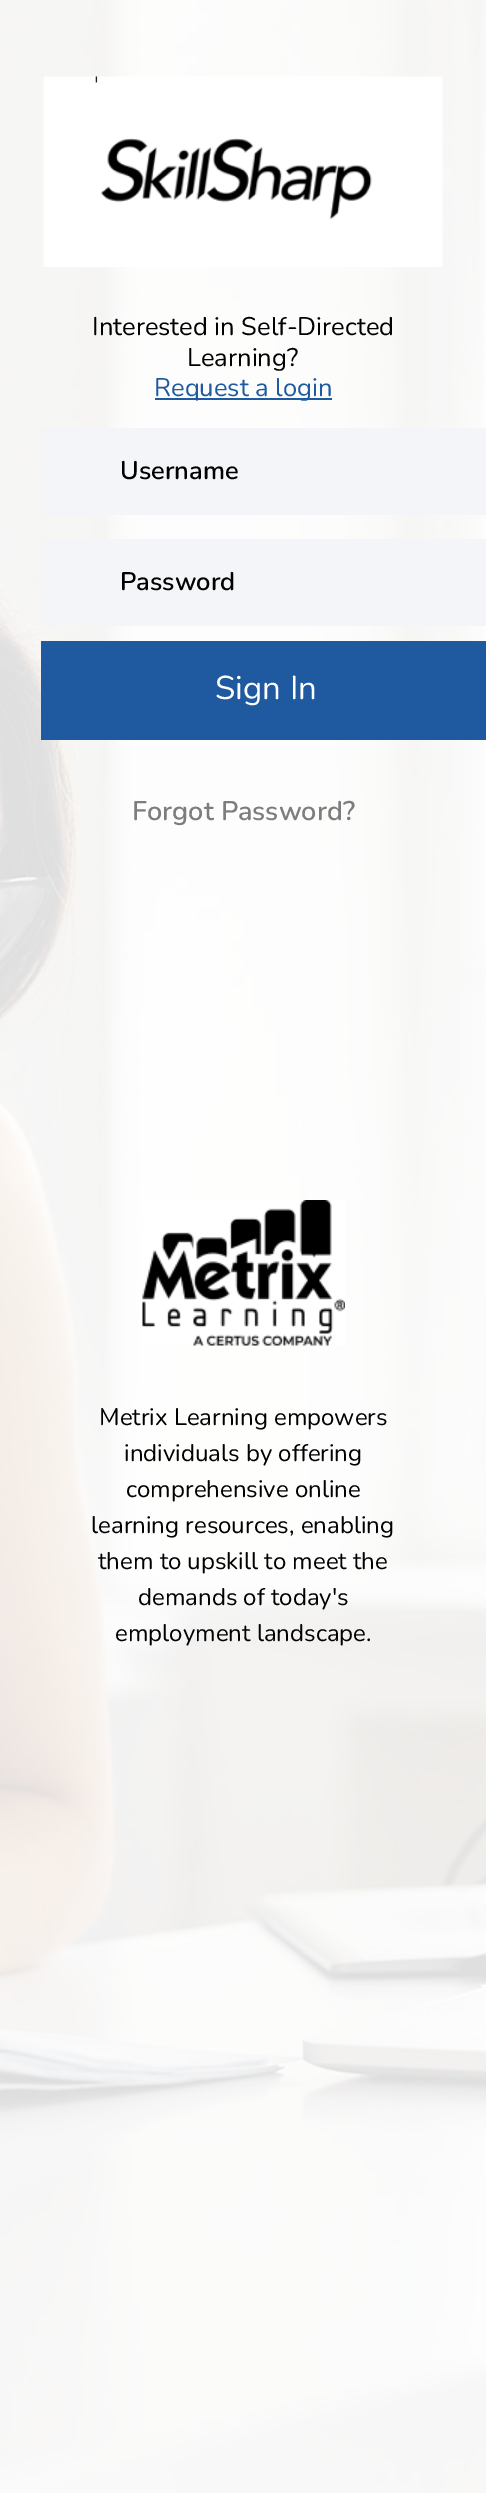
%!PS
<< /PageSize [486 2493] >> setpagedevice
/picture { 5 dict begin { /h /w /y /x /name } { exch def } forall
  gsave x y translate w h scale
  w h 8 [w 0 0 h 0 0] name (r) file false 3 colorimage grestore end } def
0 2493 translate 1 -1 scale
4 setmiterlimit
1 setgray
0 0 486 2493 rectfill
(img1.rgb) 0 0 486 2493 picture
(img2.rgb) 43 76 400 191 picture
/Nunito-Regular [25.5 0 0 -25.5 0 0] selectfont
0 setgray
92 335 moveto (Interested in Self-Directed) show
187 366 moveto (Learning?) show
0.122 0.353 0.627 setrgbcolor
155 398 177 2 rectfill
154 396 moveto (Request a login) show
0.957 0.961 0.973 setrgbcolor
41 428 445 87 rectfill
/Nunito-SemiBold [25.5 0 0 -25.5 0 0] selectfont
0 setgray
120 479 moveto (Username) show
0.957 0.961 0.973 setrgbcolor
41 539 445 87 rectfill
0 setgray
120 590 moveto (Password) show
0.122 0.353 0.627 setrgbcolor
41 641 445 99 rectfill
/Nunito-Regular [33 0 0 -33 0 0] selectfont
1 setgray
215 699 moveto (Sign In) show
/Nunito-SemiBold [27 0 0 -27 0 0] selectfont
0.49 setgray
132 820 moveto (Forgot Password?) show
(img3.rgb) 142 1200 203 146 picture
/Nunito-Regular [24 0 0 -24 0 0] selectfont
0 setgray
99 1425 moveto (Metrix Learning empowers) show
124 1461 moveto (individuals by offering) show
126 1497 moveto (comprehensive online) show
91 1533 moveto (learning resources, enabling) show
98 1569 moveto (them to upskill to meet the) show
138 1605 moveto (demands of today's) show
115 1641 moveto (employment landscape.) show
showpage
